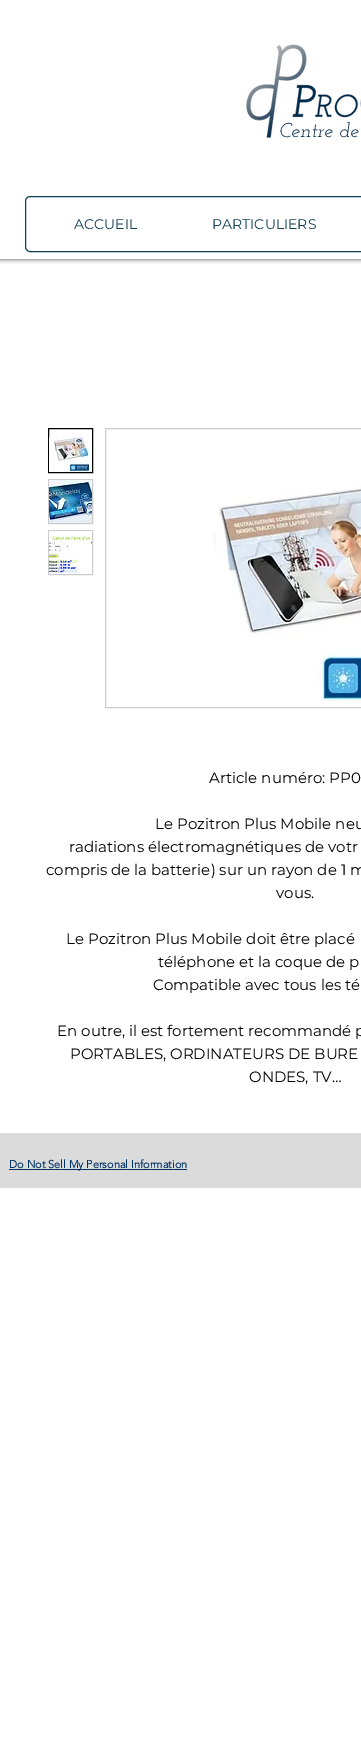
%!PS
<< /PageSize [361 1753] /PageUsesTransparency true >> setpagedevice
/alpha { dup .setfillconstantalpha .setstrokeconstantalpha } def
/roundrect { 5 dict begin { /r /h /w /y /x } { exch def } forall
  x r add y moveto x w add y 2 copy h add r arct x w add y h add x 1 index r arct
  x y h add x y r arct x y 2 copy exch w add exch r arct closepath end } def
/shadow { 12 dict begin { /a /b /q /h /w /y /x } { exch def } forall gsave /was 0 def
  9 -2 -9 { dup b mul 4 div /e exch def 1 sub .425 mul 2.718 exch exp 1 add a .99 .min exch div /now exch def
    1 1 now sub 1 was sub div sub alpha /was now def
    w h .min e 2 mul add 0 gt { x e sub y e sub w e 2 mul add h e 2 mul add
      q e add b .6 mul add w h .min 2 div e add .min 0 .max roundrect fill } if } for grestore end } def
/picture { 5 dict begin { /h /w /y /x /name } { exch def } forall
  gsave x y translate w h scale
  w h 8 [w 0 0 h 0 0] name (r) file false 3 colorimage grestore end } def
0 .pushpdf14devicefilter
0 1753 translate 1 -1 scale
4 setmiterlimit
1 setgray
0 0 361 1753 rectfill
gsave
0 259 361 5 rectclip
0 setgray
0 0 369 259 0 2.5 0.7 shadow
grestore
(img1.rgb) 246 44 115 96 picture
/JosefinSlab-Italic [20 0 0 -20 0 0] selectfont
0.008 0.157 0.286 setrgbcolor
279 137 moveto (Centre de) show
0.063 0.247 0.329 setrgbcolor
25.5 196.5 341 55 4.5 roundrect stroke
/Montserrat-Regular [14 0 0 -14 0 0] selectfont
74 229 moveto (ACCUEIL) show
212 229 moveto (PARTICULIERS) show
0 setgray
48.5 428.5 44 44 rectstroke
(img2.rgb) 49 437 42 35 picture
0.8 setgray
48.5 479.5 44 44 rectstroke
(img3.rgb) 49 480 43 43 picture
48.5 530.5 44 44 rectstroke
(img4.rgb) 49 531 43 42 picture
105.5 428.5 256 279 rectstroke
(img5.rgb) 212 487 149 216 picture
/Montserrat-Regular [15 0 0 -15 0 0] selectfont
0 setgray
209 783 moveto (Article numéro: PP0) show
155 829 moveto (Le Pozitron Plus Mobile neu) show
69 852 moveto (radiations électromagnétiques de votr) show
46 875 moveto (compris de la batterie\) sur un rayon de 1 m) show
276 898 moveto (vous.) show
66 944 moveto (Le Pozitron Plus Mobile doit être placé) show
158 967 moveto (téléphone et la coque de p) show
153 990 moveto (Compatible avec tous les té) show
57 1036 moveto (En outre, il est fortement recommandé p) show
70 1059 moveto (PORTABLES, ORDINATEURS DE BURE) show
249 1082 moveto (ONDES, TV…) show
0.859 setgray
0 1133 361 55 rectfill
0 0.2 0.4 setrgbcolor
9 1169 178 1 rectfill
/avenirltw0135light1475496-Bold [11 0 0 -11 0 0] selectfont
9 1168 moveto (Do Not Sell My Personal Information) show
.poppdf14devicefilter showpage
